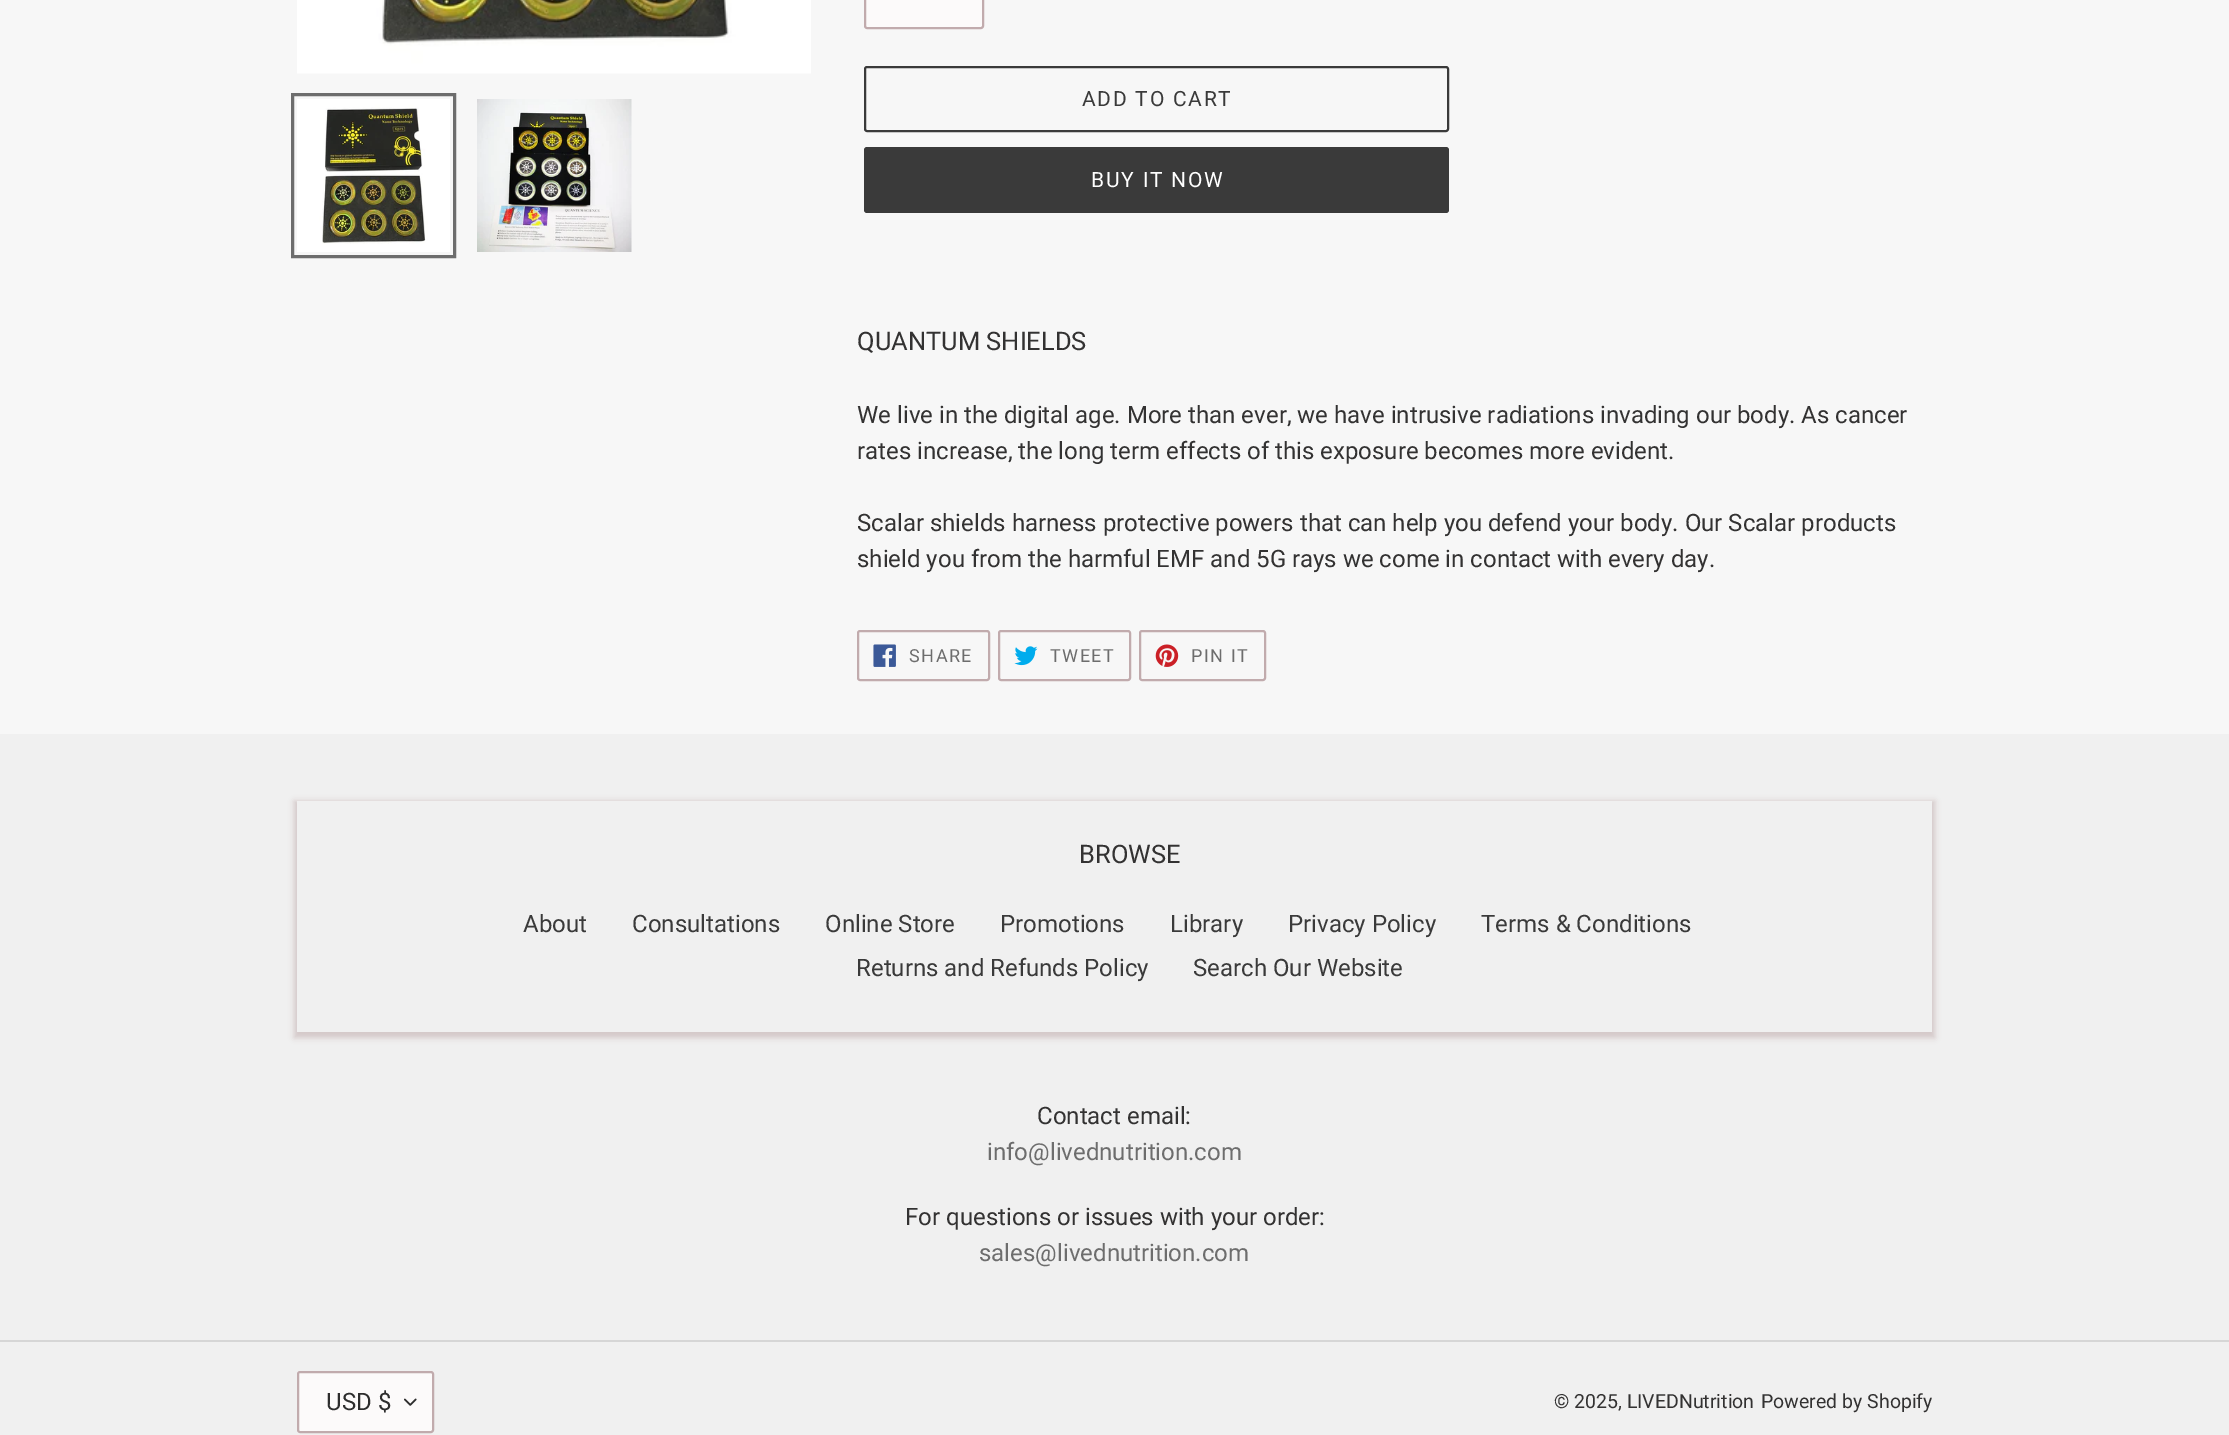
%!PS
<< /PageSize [2229 1435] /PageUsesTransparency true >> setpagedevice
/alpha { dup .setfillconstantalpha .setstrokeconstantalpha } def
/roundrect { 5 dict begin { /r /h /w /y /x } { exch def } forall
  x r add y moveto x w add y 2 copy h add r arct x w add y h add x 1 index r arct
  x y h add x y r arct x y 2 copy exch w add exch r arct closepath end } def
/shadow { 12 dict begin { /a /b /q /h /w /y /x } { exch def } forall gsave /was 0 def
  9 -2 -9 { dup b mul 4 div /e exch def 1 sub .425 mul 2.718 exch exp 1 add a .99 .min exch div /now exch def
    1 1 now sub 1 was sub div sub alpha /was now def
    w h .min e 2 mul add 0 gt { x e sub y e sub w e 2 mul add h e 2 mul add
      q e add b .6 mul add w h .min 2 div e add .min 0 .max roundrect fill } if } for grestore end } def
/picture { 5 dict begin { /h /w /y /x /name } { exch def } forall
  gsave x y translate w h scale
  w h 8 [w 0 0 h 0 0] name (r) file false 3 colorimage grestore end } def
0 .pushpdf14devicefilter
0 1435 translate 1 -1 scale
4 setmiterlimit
0.969 setgray
0 0 2229 1435 rectfill
(img1.rgb) 297 0 514 74 picture
0.427 setgray
3 setlinewidth
292.5 94.5 162 162 rectstroke
(img2.rgb) 297 99 153 153 picture
(img3.rgb) 477 99 155 153 picture
0.988 0.98 0.98 setrgbcolor
865 -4 118 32 2 roundrect gsave fill grestore
0.757 0.671 0.678 setrgbcolor
2 setlinewidth
stroke
0.227 setgray
865 67 583 64 2 roundrect stroke
/Roboto-Regular [21 0 0 -21 0 0] selectfont
1082 106 moveto 1.75 0 (ADD TO CART) ashow
864 147 585 66 3 roundrect fill
1 setgray
1091 187 moveto 1.75 0 (BUY IT NOW) ashow
/Roboto-Regular [25.5 0 0 -25.5 0 0] selectfont
0.2 0.196 0.196 setrgbcolor
857 350 moveto (QUANTUM SHIELDS) show
/Roboto-Regular [24 0 0 -24 0 0] selectfont
857 423 moveto (We live in the digital age. More than ever, we have intrusive radiations invading our body. As cancer) show
857 459 moveto (rates increase, the long term effects of this exposure becomes more evident.) show
857 531 moveto (Scalar shields harness protective powers that can help you defend your body. Our Scalar products) show
857 567 moveto (shield you from the harmful EMF and 5G rays we come in contact with every day.) show
0.757 0.671 0.678 setrgbcolor
858 631 131 49 2 roundrect stroke
(img4.rgb) 873 644 23 23 picture
/Roboto-Regular [18 0 0 -18 0 0] selectfont
0.427 setgray
909 662 moveto 1.5 0 (SHARE) ashow
0.757 0.671 0.678 setrgbcolor
999 631 131 49 2 roundrect stroke
(img5.rgb) 1014 646 24 20 picture
0.427 setgray
1050 662 moveto 1.5 0 (TWEET) ashow
0.757 0.671 0.678 setrgbcolor
1140 631 125 49 2 roundrect stroke
(img6.rgb) 1155 644 24 23 picture
0.427 setgray
1191 662 moveto 1.5 0 (PIN IT) ashow
0.941 setgray
0 734 2229 701 rectfill
gsave
newpath 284 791 moveto 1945 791 lineto 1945 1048 lineto 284 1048 lineto closepath 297 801 moveto 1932 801 lineto 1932 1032 lineto 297 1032 lineto closepath eoclip newpath
0.749 0.671 0.678 setrgbcolor
294 801 1641 237 0 3 0.6 shadow
grestore
/Roboto-Regular [25.5 0 0 -25.5 0 0] selectfont
0.2 0.196 0.196 setrgbcolor
1079 863 moveto (BROWSE) show
/Roboto-Regular [24 0 0 -24 0 0] selectfont
0.227 setgray
523 932 moveto (About) show
632 932 moveto (Consultations) show
825 932 moveto (Online Store) show
1000 932 moveto (Promotions) show
1170 932 moveto (Library) show
1288 932 moveto (Privacy Policy) show
1481 932 moveto (Terms & Conditions) show
856 976 moveto (Returns and Refunds Policy) show
1193 976 moveto (Search Our Website) show
0.2 0.196 0.196 setrgbcolor
1037 1124 moveto (Contact email:) show
0.427 setgray
987 1160 moveto (info@livednutrition.com) show
0.2 0.196 0.196 setrgbcolor
905 1225 moveto (For questions or issues with your order:) show
0.427 setgray
979 1261 moveto (sales@livednutrition.com) show
0.839 setgray
0 1340 2229 2 rectfill
0.988 0.98 0.98 setrgbcolor
297 1371 137 62 3 roundrect fill
(img7.rgb) 404 1398 13 8 picture
0.757 0.671 0.678 setrgbcolor
298 1372 135 60 2 roundrect stroke
0.176 setgray
326 1410 moveto (USD $) show
/Roboto-Regular [19.5 0 0 -19.5 0 0] selectfont
0.2 0.196 0.196 setrgbcolor
1554 1408 moveto (© 2025, LIVEDNutrition) show
1761 1408 moveto (Powered by Shopify) show
.poppdf14devicefilter showpage
